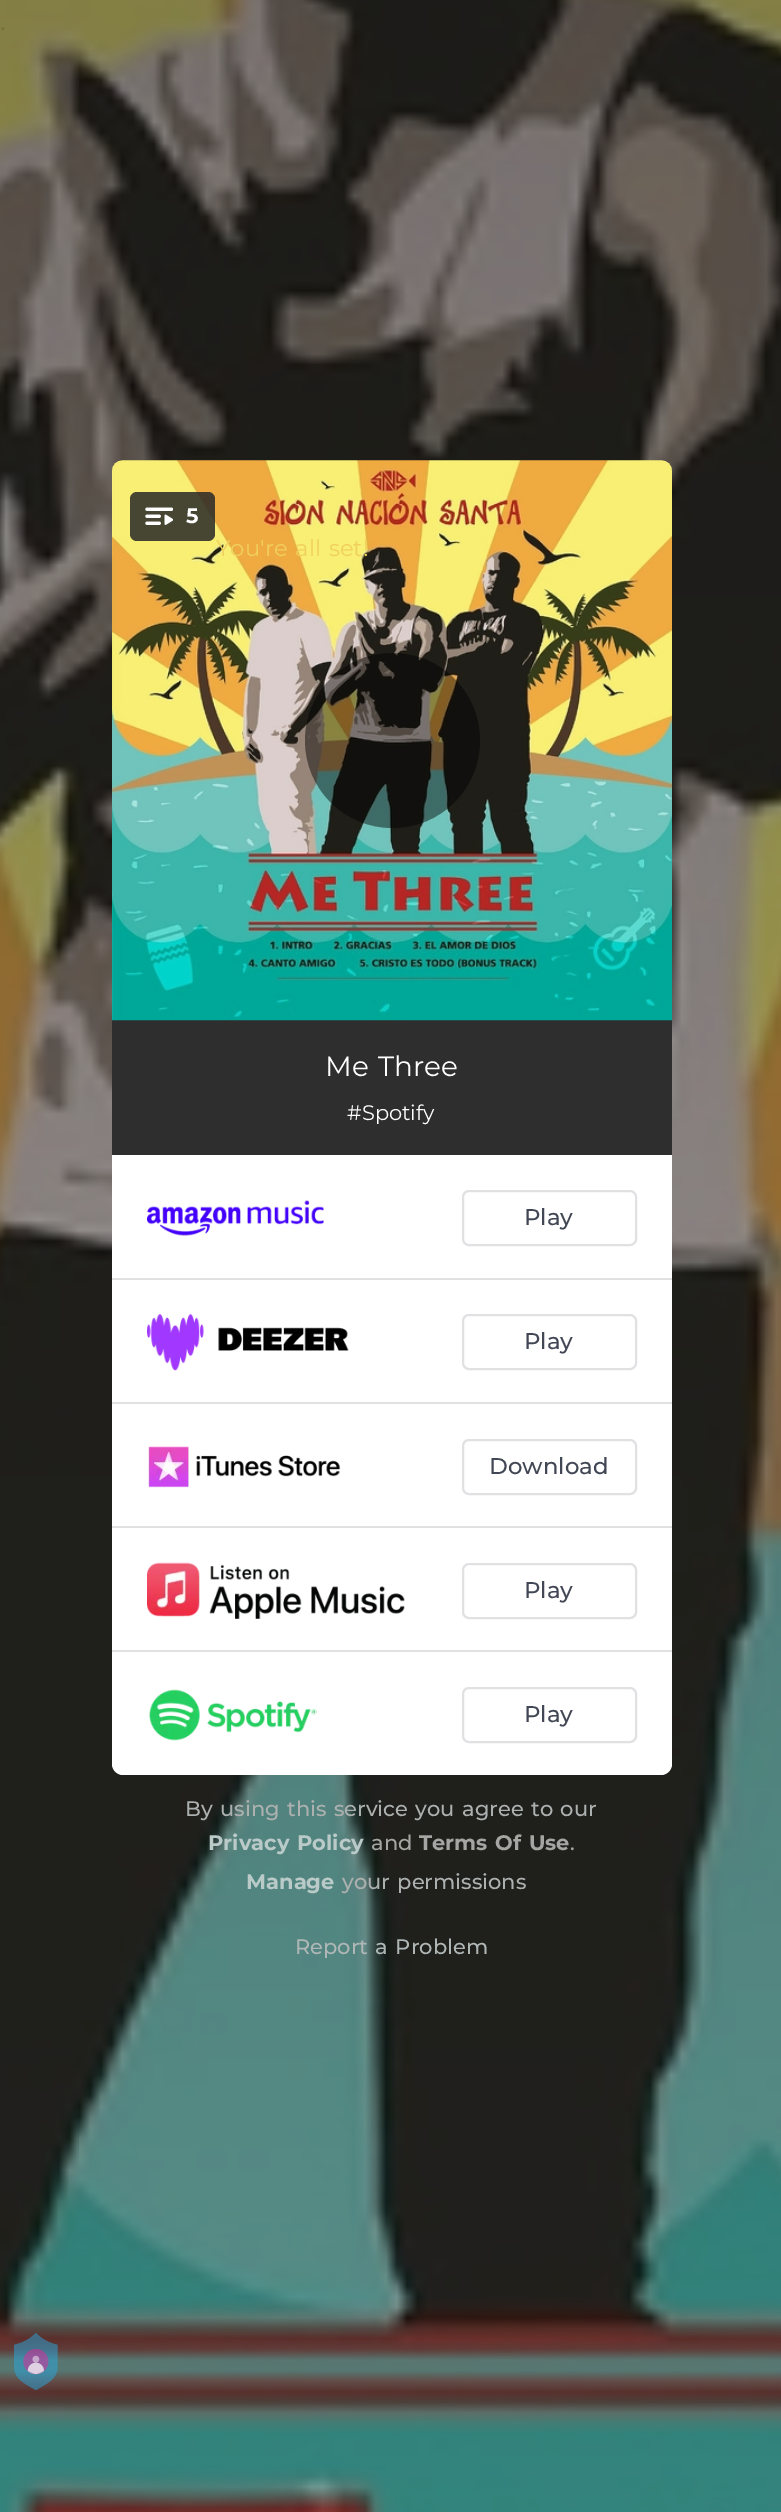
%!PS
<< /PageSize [781 2512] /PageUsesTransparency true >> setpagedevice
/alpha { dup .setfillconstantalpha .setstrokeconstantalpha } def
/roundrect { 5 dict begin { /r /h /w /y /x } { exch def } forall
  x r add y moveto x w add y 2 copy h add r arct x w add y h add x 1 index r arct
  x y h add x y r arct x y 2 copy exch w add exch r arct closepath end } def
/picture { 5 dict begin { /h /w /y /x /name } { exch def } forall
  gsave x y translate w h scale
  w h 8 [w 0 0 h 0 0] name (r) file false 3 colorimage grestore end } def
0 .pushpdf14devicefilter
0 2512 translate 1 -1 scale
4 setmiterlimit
1 setgray
0 0 781 2512 rectfill
(img1.rgb) 0 0 781 2512 picture
0.18 setgray
112 1020 560 135 rectfill
(img2.rgb) 112 460 560 561 picture
0.85 alpha
0.157 setgray
130 492 85 49 7 roundrect fill
1 alpha
(img3.rgb) 145 507 28 18 picture
/Montserrat-Bold [21 0 0 -21 0 0] selectfont
1 setgray
186 523 moveto (5) show
0.45 alpha
0 setgray
newpath 392.5 740.5 87.5 0 360 arc closepath fill
/Montserrat-Regular [22.75 0 0 -22.75 0 0] selectfont
1 alpha
0.941 0.812 0.365 setrgbcolor
216 556 moveto 1.75 0 32 (You're all set!) widthshow
/Montserrat-Regular [28 0 0 -28 0 0] selectfont
1 setgray
325 1076 moveto 1.75 0 32 (Me Three) widthshow
/Montserrat-Regular [21 0 0 -21 0 0] selectfont
347 1120 moveto (#Spotify) show
newpath 112 1155 moveto 672 1155 lineto 672 1764 lineto 672 1770 667 1775 661 1775 curveto 123 1775 lineto 117 1775 112 1770 112 1764 curveto closepath fill
0.882 0.882 0.894 setrgbcolor
112 1278 560 2 rectfill
(img4.rgb) 147 1200 177 36 picture
2 setlinewidth
463 1191 173 54 6 roundrect stroke
/Montserrat-Medium [22.75 0 0 -22.75 0 0] selectfont
0.255 0.278 0.329 setrgbcolor
524 1225 moveto (Play) show
0.882 0.882 0.894 setrgbcolor
112 1402 560 2 rectfill
(img5.rgb) 147 1314 202 57 picture
463 1315 173 54 6 roundrect stroke
0.255 0.278 0.329 setrgbcolor
524 1349 moveto (Play) show
0.882 0.882 0.894 setrgbcolor
112 1526 560 2 rectfill
(img6.rgb) 148 1446 193 42 picture
463 1440 173 54 6 roundrect stroke
0.255 0.278 0.329 setrgbcolor
489 1474 moveto (Download) show
0.882 0.882 0.894 setrgbcolor
112 1650 560 2 rectfill
(img7.rgb) 147 1562 258 57 picture
463 1564 173 54 6 roundrect stroke
0.255 0.278 0.329 setrgbcolor
524 1598 moveto (Play) show
(img8.rgb) 149 1689 168 52 picture
0.882 0.882 0.894 setrgbcolor
463 1688 173 54 6 roundrect stroke
0.255 0.278 0.329 setrgbcolor
524 1722 moveto (Play) show
/Montserrat-Medium [21 0 0 -21 0 0] selectfont
0.675 0.694 0.69 setrgbcolor
185 1816 moveto 1.75 0 32 (By using this service you agree to our) widthshow
/Montserrat-Bold [21 0 0 -21 0 0] selectfont
0.725 0.792 0.784 setrgbcolor
208 1850 moveto 1.75 0 32 (Privacy Policy) widthshow
/Montserrat-Medium [21 0 0 -21 0 0] selectfont
0.647 0.647 0.643 setrgbcolor
371 1850 moveto (and) show
/Montserrat-Bold [21 0 0 -21 0 0] selectfont
419 1850 moveto 1.75 0 32 (Terms Of Use) widthshow
/Montserrat-Medium [21 0 0 -21 0 0] selectfont
570 1850 moveto (.) show
/Montserrat-Bold [21 0 0 -21 0 0] selectfont
0.725 0.792 0.784 setrgbcolor
246 1889 moveto (Manage) show
/Montserrat-Medium [21 0 0 -21 0 0] selectfont
0.675 0.694 0.69 setrgbcolor
342 1889 moveto 1.75 0 32 (your permissions) widthshow
0.682 0.718 0.714 setrgbcolor
295 1954 moveto 1.75 0 32 (Report a Problem) widthshow
(img9.rgb) 14 2333 44 58 picture
.poppdf14devicefilter showpage
